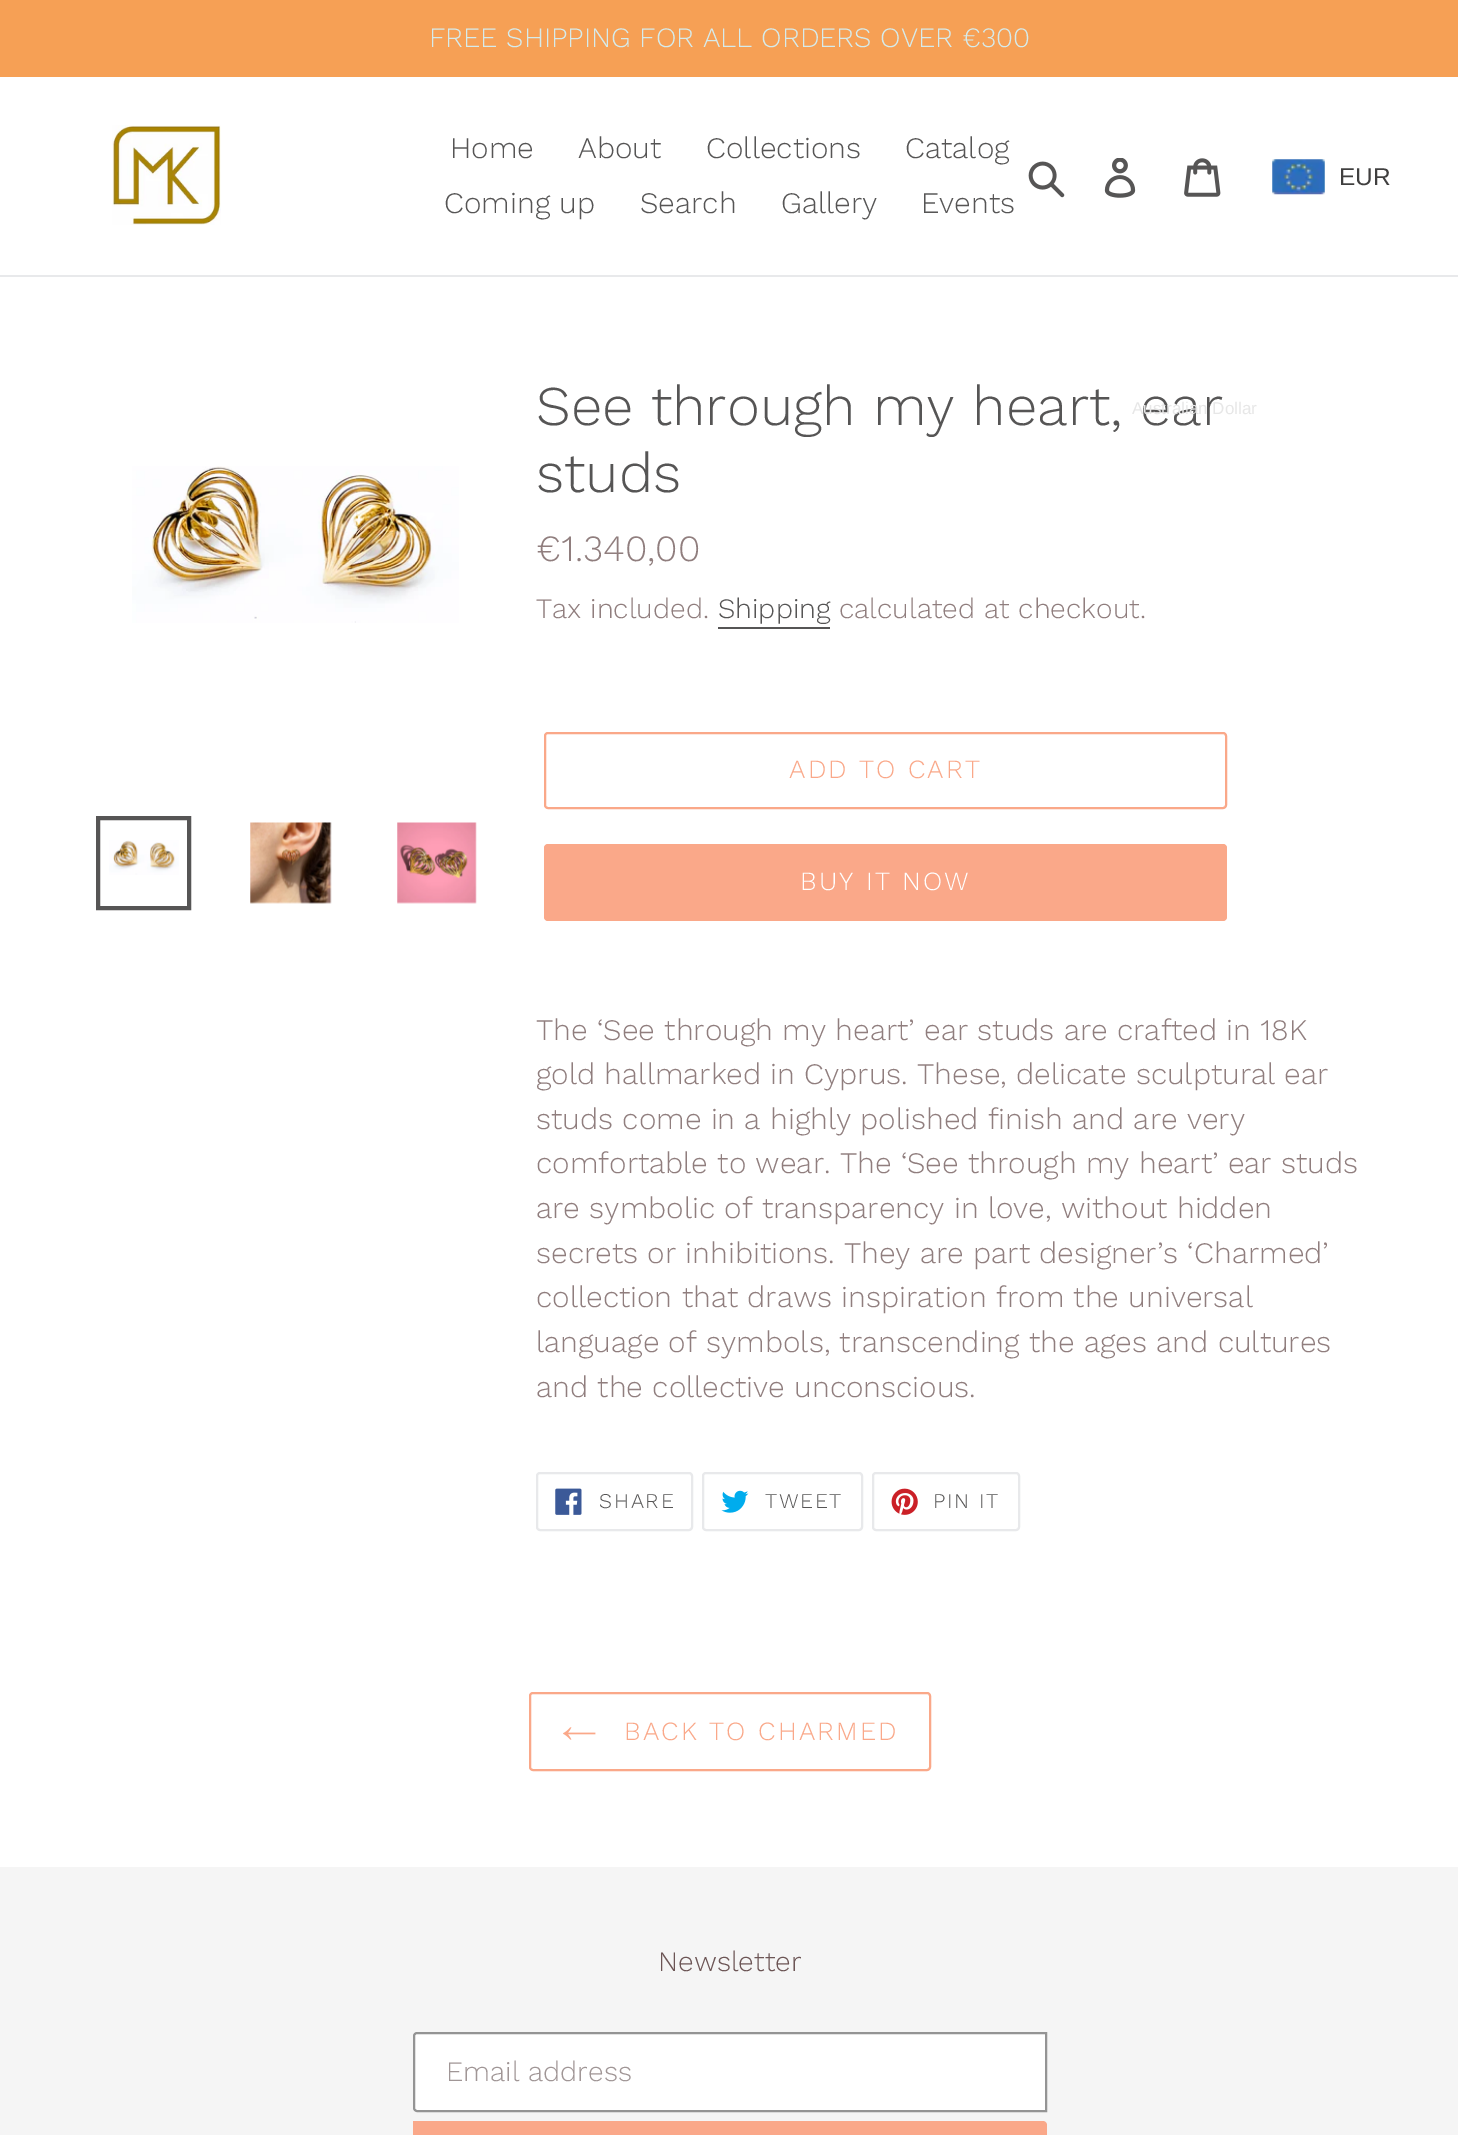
%!PS
<< /PageSize [1458 2135] >> setpagedevice
/roundrect { 5 dict begin { /r /h /w /y /x } { exch def } forall
  x r add y moveto x w add y 2 copy h add r arct x w add y h add x 1 index r arct
  x y h add x y r arct x y 2 copy exch w add exch r arct closepath end } def
/picture { 5 dict begin { /h /w /y /x /name } { exch def } forall
  gsave x y translate w h scale
  w h 8 [w 0 0 h 0 0] name (r) file false 3 colorimage grestore end } def
0 2135 translate 1 -1 scale
4 setmiterlimit
1 setgray
0 0 1458 2135 rectfill
0.965 0.627 0.333 setrgbcolor
0 0 1458 77 rectfill
/WorkSans-Light [28 0 0 -28 0 0] selectfont
0.839 0.922 0.922 setrgbcolor
429 47 moveto (FREE SHIPPING FOR ALL ORDERS OVER €300) show
0.91 0.914 0.922 setrgbcolor
0 275 1458 2 rectfill
(img1.rgb) 112 125 109 100 picture
/WorkSans-Light [29.75 0 0 -29.75 0 0] selectfont
0.337 0.333 0.333 setrgbcolor
450 158 moveto (Home) show
578 158 moveto (About) show
706 158 moveto (Collections) show
905 158 moveto (Catalog) show
444 213 moveto (Coming up) show
640 213 moveto (Search) show
781 213 moveto (Gallery) show
921 213 moveto (Events) show
(img2.rgb) 1028 161 37 37 picture
(img3.rgb) 1104 158 32 40 picture
(img4.rgb) 1184 158 37 39 picture
(img5.rgb) 1272 159 53 36 picture
/LiberationSans-Regular [24.5 0 0 -24.5 0 0] selectfont
0.251 0.247 0.247 setrgbcolor
1339 185 moveto (EUR) show
/WorkSans-Light [56 0 0 -56 0 0] selectfont
0.337 0.333 0.333 setrgbcolor
536 425 moveto (See through my heart, ear) show
/LiberationSans-Regular [17 0 0 -17 0 0] selectfont
0.906 setgray
1132 414 moveto (Australian Dollar) show
(img6.rgb) 132 466 327 157 picture
0.337 0.333 0.333 setrgbcolor
4 setlinewidth
98 818 91 90 rectstroke
(img7.rgb) 109 840 70 35 picture
(img8.rgb) 250 822 82 82 picture
(img9.rgb) 397 822 80 82 picture
/WorkSans-Light [56 0 0 -56 0 0] selectfont
536 492 moveto (studs) show
/WorkSans-Light [37 0 0 -37 0 0] selectfont
0.565 0.494 0.494 setrgbcolor
536 561 moveto (€1.340,00) show
/WorkSans-Light [28 0 0 -28 0 0] selectfont
536 618 moveto (Tax included.) show
0.337 0.333 0.333 setrgbcolor
718 618 moveto (Shipping) show
718 627 112 2 rectfill
0.565 0.494 0.494 setrgbcolor
839 618 moveto (calculated at checkout.) show
0.98 0.659 0.537 setrgbcolor
2 setlinewidth
545 733 681 75 3 roundrect stroke
/WorkSans-Light [26.25 0 0 -26.25 0 0] selectfont
789 778 moveto 2.1 0 (ADD TO CART) ashow
544 844 683 77 4 roundrect fill
1 setgray
800 890 moveto 2.1 0 (BUY IT NOW) ashow
/WorkSans-Light [29.75 0 0 -29.75 0 0] selectfont
0.565 0.494 0.494 setrgbcolor
536 1040 moveto (The ‘See through my heart’ ear studs are crafted in 18K) show
536 1084 moveto (gold hallmarked in Cyprus. These, delicate sculptural ear) show
536 1129 moveto (studs come in a highly polished finish and are very) show
536 1173 moveto (comfortable to wear. The ‘See through my heart’ ear studs) show
536 1218 moveto (are symbolic of transparency in love, without hidden) show
536 1263 moveto (secrets or inhibitions. They are part designer’s ‘Charmed’) show
536 1307 moveto (collection that draws inspiration from the universal) show
536 1352 moveto (language of symbols, transcending the ages and cultures) show
536 1397 moveto (and the collective unconscious.) show
0.91 0.914 0.922 setrgbcolor
537 1473 155 57 3 roundrect stroke
(img10.rgb) 555 1488 27 27 picture
/WorkSans-Light [21 0 0 -21 0 0] selectfont
0.337 0.333 0.333 setrgbcolor
599 1508 moveto 1.75 0 (SHARE) ashow
0.91 0.914 0.922 setrgbcolor
703 1473 159 57 3 roundrect stroke
(img11.rgb) 721 1490 28 23 picture
0.337 0.333 0.333 setrgbcolor
765 1508 moveto 1.75 0 (TWEET) ashow
0.91 0.914 0.922 setrgbcolor
873 1473 146 57 3 roundrect stroke
(img12.rgb) 891 1488 27 27 picture
0.337 0.333 0.333 setrgbcolor
933 1508 moveto 1.75 0 (PIN IT) ashow
0.98 0.659 0.537 setrgbcolor
530 1693 400 77 3 roundrect stroke
(img13.rgb) 563 1727 33 13 picture
/WorkSans-Light [26.25 0 0 -26.25 0 0] selectfont
624 1740 moveto 2.1 0 (BACK TO CHARMED) ashow
0.961 setgray
0 1867 1458 268 rectfill
/WorkSans-Light [28 0 0 -28 0 0] selectfont
0.424 0.333 0.333 setrgbcolor
658 1971 moveto (Newsletter) show
1 setgray
newpath 417 2033 moveto 1046 2033 lineto 1046 2111 lineto 417 2111 lineto 415.5 2111 414 2109.5 414 2108 curveto 414 2036 lineto 414 2034.5 415.5 2033 417 2033 curveto closepath gsave fill grestore
0.58 setgray
stroke
0.627 0.588 0.588 setrgbcolor
446 2081 moveto (Email address) show
0.98 0.659 0.537 setrgbcolor
newpath 413 2121 moveto 1043 2121 lineto 1045 2121 1047 2123 1047 2125 curveto 1047 2135 lineto 1047 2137 1045 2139 1043 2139 curveto 413 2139 lineto closepath fill
showpage
